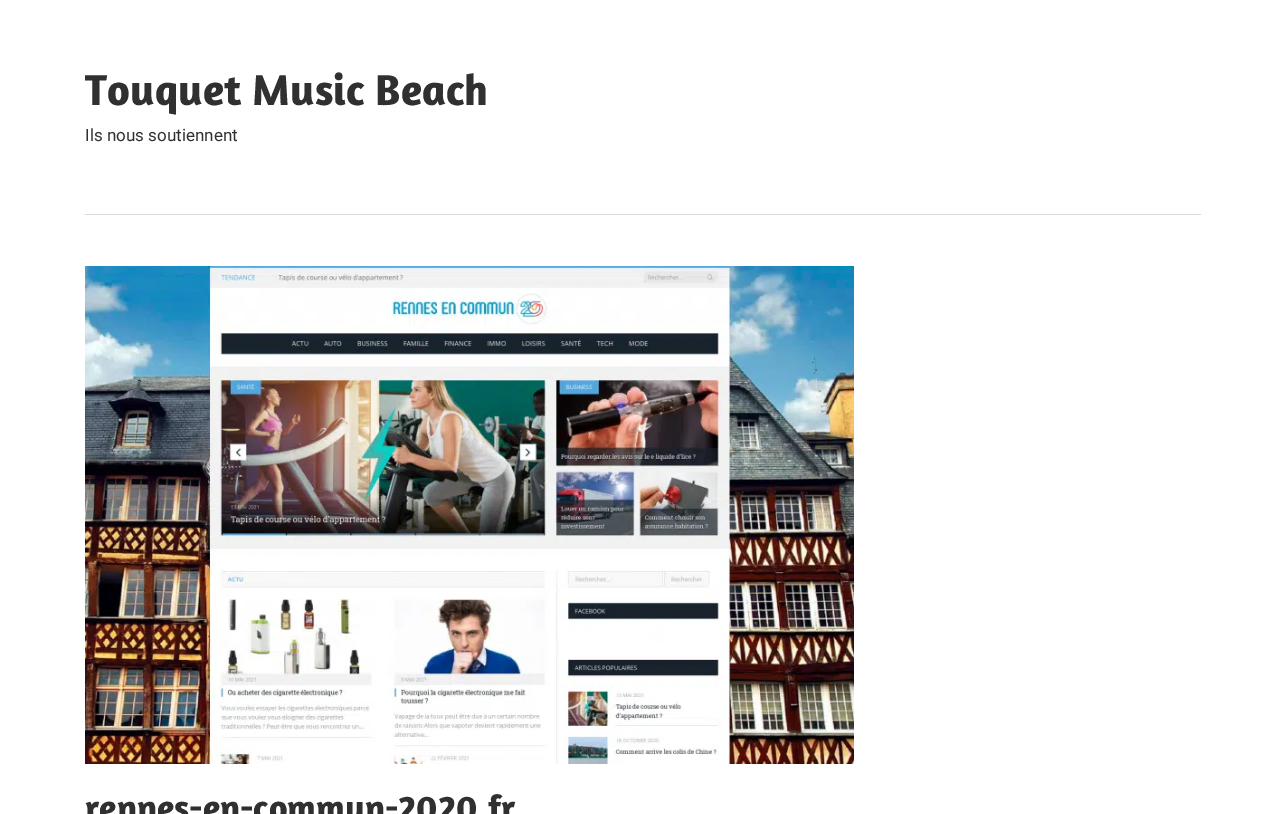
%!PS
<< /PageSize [1286 814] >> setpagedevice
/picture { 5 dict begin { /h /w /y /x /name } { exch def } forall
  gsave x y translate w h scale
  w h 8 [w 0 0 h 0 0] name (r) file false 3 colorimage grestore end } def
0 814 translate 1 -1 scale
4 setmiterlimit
1 setgray
0 0 1286 814 rectfill
/Amaranth-Bold [44 0 0 -44 0 0] selectfont
0.188 setgray
85 105 moveto (Touquet Music Beach) show
/Roboto-Regular [17 0 0 -17 0 0] selectfont
85 141 moveto (Ils nous soutiennent) show
0.851 setgray
85 214 1116 1 rectfill
(img1.rgb) 85 266 769 498 picture
/Amaranth-Bold [36 0 0 -36 0 0] selectfont
0.188 setgray
85 820 moveto (rennes-en-commun-2020.fr) show
showpage
